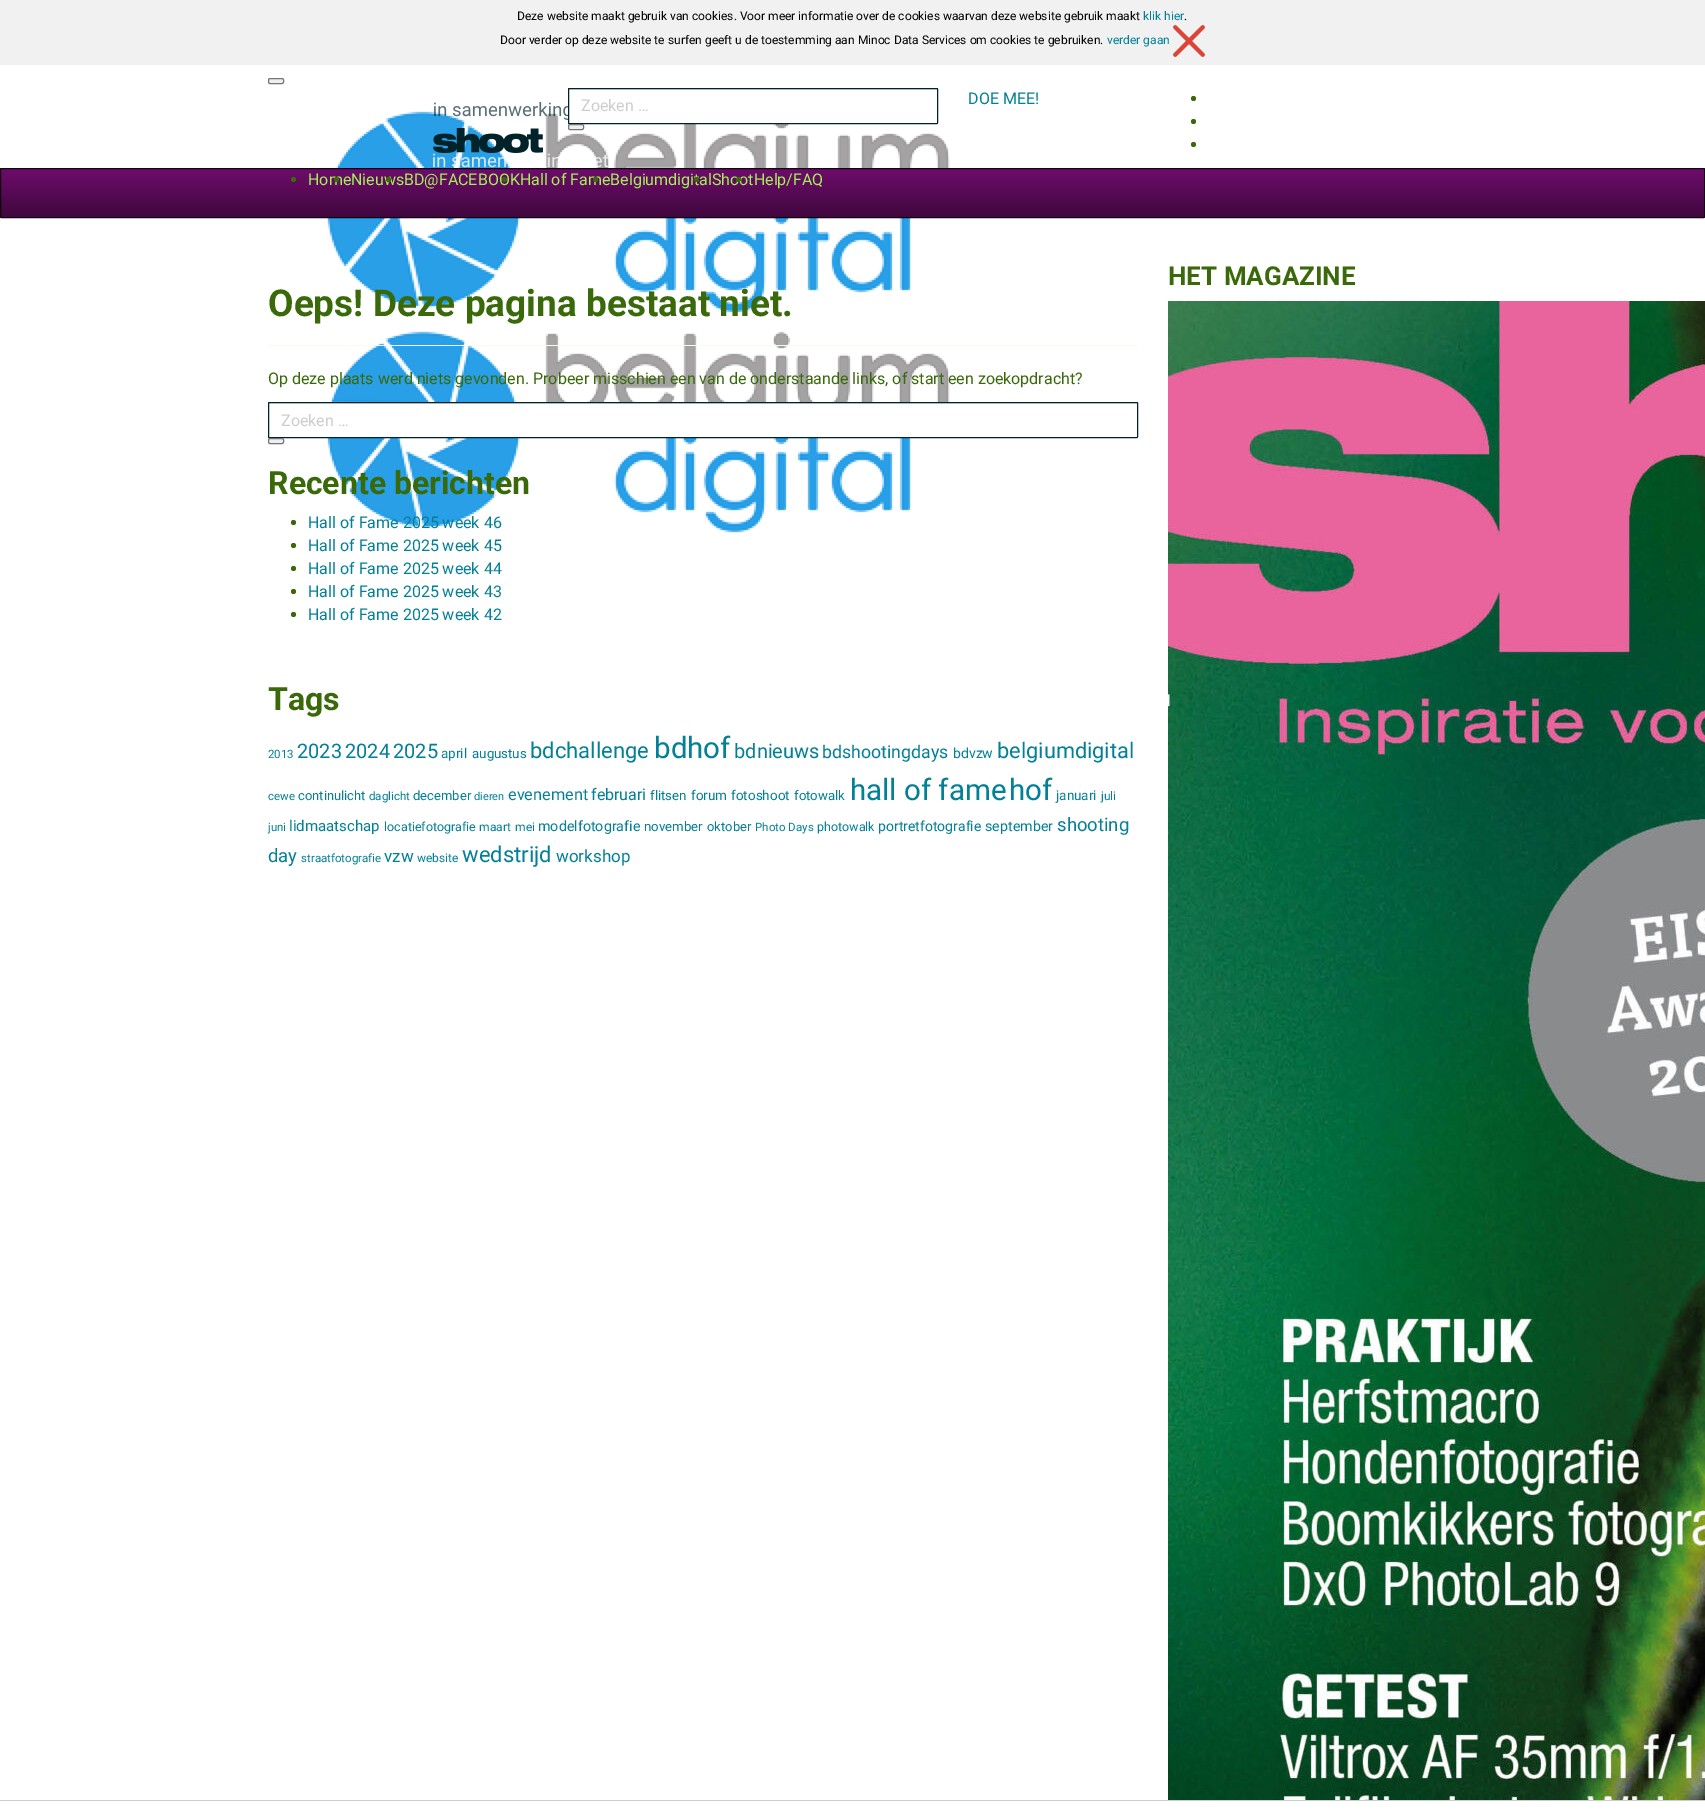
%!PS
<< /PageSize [1705 1811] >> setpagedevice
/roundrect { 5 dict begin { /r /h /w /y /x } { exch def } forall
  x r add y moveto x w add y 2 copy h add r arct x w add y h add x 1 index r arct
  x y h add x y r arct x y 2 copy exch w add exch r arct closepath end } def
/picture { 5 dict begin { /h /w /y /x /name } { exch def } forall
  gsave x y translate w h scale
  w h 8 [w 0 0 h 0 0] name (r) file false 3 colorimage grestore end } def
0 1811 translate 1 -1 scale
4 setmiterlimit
1 setgray
0 0 1705 1811 rectfill
0.945 setgray
0 0 1705 65 rectfill
/Roboto-Regular [12 0 0 -12 0 0] selectfont
0 setgray
517 20 moveto (Deze website maakt gebruik van cookies. Voor meer informatie over de cookies waarvan deze website gebruik maakt) show
0.008 0.502 0.588 setrgbcolor
1143 20 moveto (klik hier) show
0 setgray
1184 20 moveto (.) show
500 44 moveto (Door verder op deze website te surfen geeft u de toestemming aan Minoc Data Services om cookies te gebruiken.) show
0.008 0.502 0.588 setrgbcolor
1107 44 moveto (verder gaan) show
(img1.rgb) 1173 25 32 32 picture
0.937 setgray
268.5 78.5 15 5 1.5 roundrect gsave fill grestore
0.463 setgray
stroke
(img4.rgb) 326 111 624 202 picture
1 setgray
568 88 370 36 1 roundrect fill
0.925 setgray
569 89 368 1 rectfill
0 0.137 0.161 setrgbcolor
568.5 88.5 369 35 0.5 roundrect stroke
/Roboto-Regular [16 0 0 -16 0 0] selectfont
0.804 0.808 0.8 setrgbcolor
581 111 moveto (Zoeken …) show
0.937 setgray
568.5 124.5 15 5 1.5 roundrect gsave fill grestore
0.463 setgray
stroke
0.008 0.502 0.588 setrgbcolor
968 104 moveto (DOE MEE!) show
0.224 0.412 0.035 setrgbcolor
newpath 1193.5 98.5 2.5 0 360 arc closepath fill
newpath 1193.5 121.5 2.5 0 360 arc closepath fill
newpath 1193.5 144.5 2.5 0 360 arc closepath fill
(img2.rgb) 433 102 135 51 picture
(img3.rgb) 433 153 175 15 picture
(img4.rgb) 326 331 624 202 picture
gsave newpath 1 169 moveto 1704 169 lineto 1704 217 lineto 1 217 lineto closepath clip newpath
<< /ShadingType 2 /ColorSpace /DeviceRGB /Coords [853 169 853 217] /Extend [true true] /Function << /FunctionType 2 /Domain [0 1] /C0 [0.431 0.047 0.42] /C1 [0.251 0.027 0.243] /N 1 >> >> shfill grestore
0.071 0.008 0.067 setrgbcolor
0.5 168.5 1704 49 0.5 roundrect stroke
0.224 0.412 0.035 setrgbcolor
newpath 293.5 179.5 2.5 0 360 arc closepath fill
0.639 0.941 0.341 setrgbcolor
308 185 moveto (HomeNieuwsBD@FACEBOOKHall of FameBelgiumdigitalShootHelp/FAQ) show
0.224 0.412 0.035 setrgbcolor
newpath 336.5 179.5 2.5 0 360 arc closepath fill
newpath 388.5 179.5 2.5 0 360 arc closepath fill
newpath 504.5 179.5 2.5 0 360 arc closepath fill
newpath 595.5 179.5 2.5 0 360 arc closepath fill
newpath 696.5 179.5 2.5 0 360 arc closepath fill
newpath 738.5 179.5 2.5 0 360 arc closepath fill
/Roboto-Bold [26 0 0 -26 0 0] selectfont
1168 285 moveto (HET MAGAZINE) show
(img5.rgb) 1168 301 537 1499 picture
0.957 0.992 0.925 setrgbcolor
268 345 870 1 rectfill
/Roboto-Bold [37 0 0 -37 0 0] selectfont
0.224 0.412 0.035 setrgbcolor
268 316 moveto (Oeps! Deze pagina bestaat niet.) show
/Roboto-Regular [16 0 0 -16 0 0] selectfont
268 384 moveto (Op deze plaats werd niets gevonden. Probeer misschien een van de onderstaande links, of start een zoekopdracht?) show
1 setgray
268 402 870 36 1 roundrect fill
0.925 setgray
269 403 868 1 rectfill
0 0.137 0.161 setrgbcolor
268.5 402.5 869 35 0.5 roundrect stroke
0.804 0.808 0.8 setrgbcolor
281 426 moveto (Zoeken …) show
0.937 setgray
268.5 438.5 15 5 1.5 roundrect gsave fill grestore
0.463 setgray
stroke
/Roboto-Bold [32 0 0 -32 0 0] selectfont
0.224 0.412 0.035 setrgbcolor
268 494 moveto (Recente berichten) show
newpath 293.5 522.5 2.5 0 360 arc closepath fill
/Roboto-Regular [16 0 0 -16 0 0] selectfont
0.008 0.502 0.588 setrgbcolor
308 528 moveto (Hall of Fame 2025 week 46) show
0.224 0.412 0.035 setrgbcolor
newpath 293.5 545.5 2.5 0 360 arc closepath fill
0.008 0.502 0.588 setrgbcolor
308 551 moveto (Hall of Fame 2025 week 45) show
0.224 0.412 0.035 setrgbcolor
newpath 293.5 568.5 2.5 0 360 arc closepath fill
0.008 0.502 0.588 setrgbcolor
308 574 moveto (Hall of Fame 2025 week 44) show
0.224 0.412 0.035 setrgbcolor
newpath 293.5 591.5 2.5 0 360 arc closepath fill
0.008 0.502 0.588 setrgbcolor
308 597 moveto (Hall of Fame 2025 week 43) show
0.224 0.412 0.035 setrgbcolor
newpath 293.5 614.5 2.5 0 360 arc closepath fill
0.008 0.502 0.588 setrgbcolor
308 620 moveto (Hall of Fame 2025 week 42) show
/Roboto-Bold [32 0 0 -32 0 0] selectfont
0.224 0.412 0.035 setrgbcolor
268 710 moveto (Tags) show
/Roboto-Regular [11.5 0 0 -11.5 0 0] selectfont
0.008 0.502 0.588 setrgbcolor
268 758 moveto (2013) show
/Roboto-Regular [20 0 0 -20 0 0] selectfont
297 758 moveto (2023) show
345 758 moveto (2024) show
393 758 moveto (2025) show
/Roboto-Regular [13.5 0 0 -13.5 0 0] selectfont
441 758 moveto (april) show
/Roboto-Regular [13.25 0 0 -13.25 0 0] selectfont
472 758 moveto (augustus) show
/Roboto-Regular [22 0 0 -22 0 0] selectfont
530 758 moveto (bdchallenge) show
/Roboto-Regular [29.5 0 0 -29.5 0 0] selectfont
654 758 moveto (bdhof) show
/Roboto-Regular [20 0 0 -20 0 0] selectfont
734 758 moveto (bdnieuws) show
/Roboto-Regular [17.75 0 0 -17.75 0 0] selectfont
822 758 moveto (bdshootingdays) show
/Roboto-Regular [14 0 0 -14 0 0] selectfont
953 758 moveto (bdvzw) show
/Roboto-Regular [21.75 0 0 -21.75 0 0] selectfont
997 758 moveto (belgiumdigital) show
/Roboto-Regular [11.5 0 0 -11.5 0 0] selectfont
268 800 moveto (cewe) show
/Roboto-Regular [13 0 0 -13 0 0] selectfont
298 800 moveto (continulicht) show
/Roboto-Regular [11.5 0 0 -11.5 0 0] selectfont
369 800 moveto (daglicht) show
/Roboto-Regular [13 0 0 -13 0 0] selectfont
413 800 moveto (december) show
/Roboto-Regular [11 0 0 -11 0 0] selectfont
474 800 moveto (dieren) show
/Roboto-Regular [16.25 0 0 -16.25 0 0] selectfont
508 800 moveto (evenement) show
/Roboto-Regular [16 0 0 -16 0 0] selectfont
591 800 moveto (februari) show
/Roboto-Regular [13.25 0 0 -13.25 0 0] selectfont
650 800 moveto (flitsen) show
/Roboto-Regular [13.5 0 0 -13.5 0 0] selectfont
691 800 moveto (forum) show
731 800 moveto (fotoshoot) show
/Roboto-Regular [13.25 0 0 -13.25 0 0] selectfont
794 800 moveto (fotowalk) show
/Roboto-Regular [29.5 0 0 -29.5 0 0] selectfont
850 800 moveto (hall of fame) show
1009 800 moveto (hof) show
/Roboto-Regular [13.5 0 0 -13.5 0 0] selectfont
1056 800 moveto (januari) show
/Roboto-Regular [12 0 0 -12 0 0] selectfont
1101 800 moveto (juli) show
/Roboto-Regular [11.5 0 0 -11.5 0 0] selectfont
268 831 moveto (juni) show
/Roboto-Regular [15 0 0 -15 0 0] selectfont
289 831 moveto (lidmaatschap) show
/Roboto-Regular [12.5 0 0 -12.5 0 0] selectfont
384 831 moveto (locatiefotografie) show
/Roboto-Regular [12 0 0 -12 0 0] selectfont
479 831 moveto (maart) show
515 831 moveto (mei) show
/Roboto-Regular [14.25 0 0 -14.25 0 0] selectfont
538 831 moveto (modelfotografie) show
/Roboto-Regular [13.25 0 0 -13.25 0 0] selectfont
644 831 moveto (november) show
/Roboto-Regular [13 0 0 -13 0 0] selectfont
707 831 moveto (oktober) show
/Roboto-Regular [11.5 0 0 -11.5 0 0] selectfont
755 831 moveto (Photo Days) show
/Roboto-Regular [12.5 0 0 -12.5 0 0] selectfont
817 831 moveto (photowalk) show
/Roboto-Regular [14 0 0 -14 0 0] selectfont
878 831 moveto (portretfotografie) show
/Roboto-Regular [14.25 0 0 -14.25 0 0] selectfont
985 831 moveto (september) show
/Roboto-Regular [18.5 0 0 -18.5 0 0] selectfont
1057 831 moveto (shooting) show
268 862 moveto (day) show
/Roboto-Regular [11.5 0 0 -11.5 0 0] selectfont
301 862 moveto (straatfotografie) show
/Roboto-Regular [17 0 0 -17 0 0] selectfont
384 862 moveto (vzw) show
/Roboto-Regular [12 0 0 -12 0 0] selectfont
417 862 moveto (website) show
/Roboto-Regular [22 0 0 -22 0 0] selectfont
462 862 moveto (wedstrijd) show
/Roboto-Regular [17 0 0 -17 0 0] selectfont
556 862 moveto (workshop) show
0.8 setgray
0 1800 1705 1 rectfill
showpage
